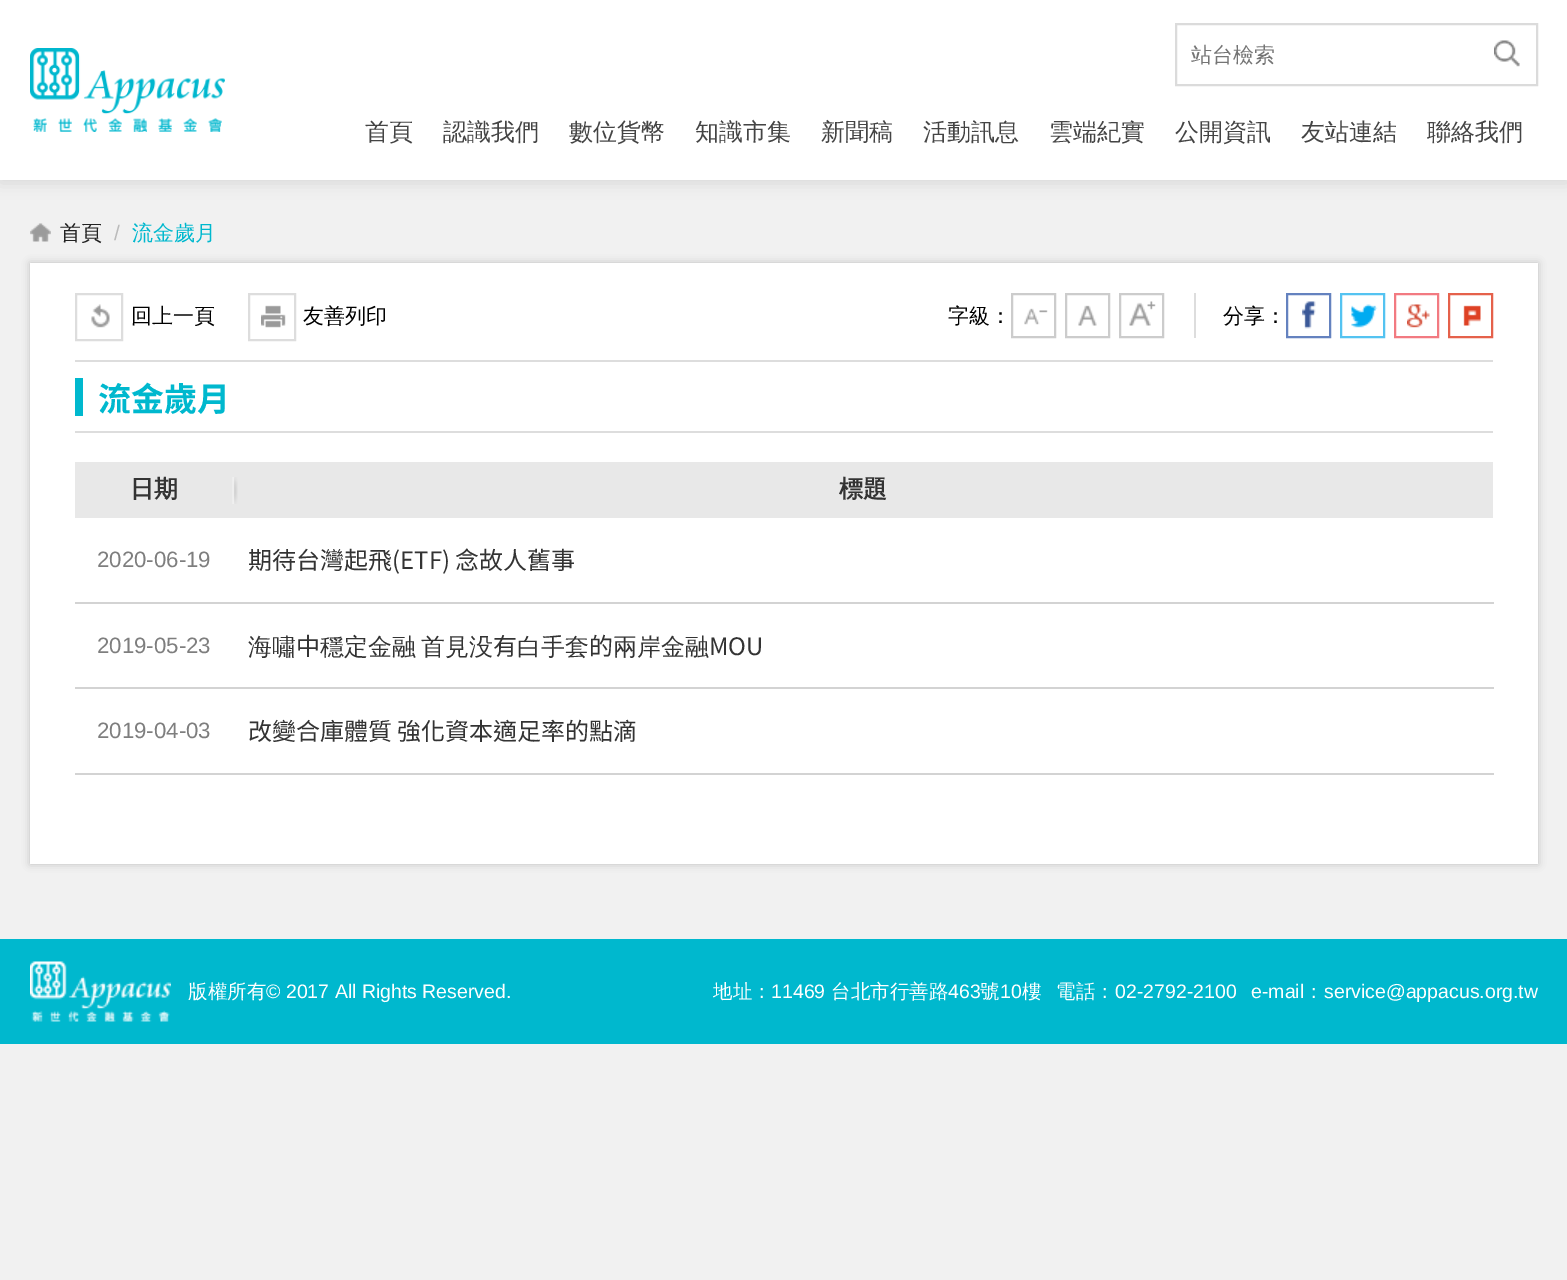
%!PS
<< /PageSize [1567 1280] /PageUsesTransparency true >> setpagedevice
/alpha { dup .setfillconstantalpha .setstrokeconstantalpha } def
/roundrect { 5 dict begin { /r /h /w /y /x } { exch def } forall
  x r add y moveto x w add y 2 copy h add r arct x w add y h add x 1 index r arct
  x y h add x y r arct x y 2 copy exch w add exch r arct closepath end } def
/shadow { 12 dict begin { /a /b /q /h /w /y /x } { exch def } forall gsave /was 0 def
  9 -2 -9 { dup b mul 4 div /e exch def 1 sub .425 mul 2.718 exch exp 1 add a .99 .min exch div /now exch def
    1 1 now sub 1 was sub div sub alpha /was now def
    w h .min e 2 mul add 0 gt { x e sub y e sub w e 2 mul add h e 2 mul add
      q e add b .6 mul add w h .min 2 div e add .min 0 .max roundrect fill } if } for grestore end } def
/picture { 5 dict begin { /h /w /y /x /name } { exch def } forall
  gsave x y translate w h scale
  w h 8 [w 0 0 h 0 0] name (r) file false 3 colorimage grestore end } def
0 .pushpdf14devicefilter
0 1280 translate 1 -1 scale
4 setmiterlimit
0.945 setgray
0 0 1567 1280 rectfill
0 setgray
0 3 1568 180 0 7.5 0.1 shadow
1 setgray
0 0 1567 180 rectfill
(img1.rgb) 30 48 195 84 picture
0.859 setgray
2 setlinewidth
1176 24 361 61 rectstroke
/WenQuanYiZenHei-Medium [21 0 0 -21 0 0] selectfont
0.459 setgray
1191 62 moveto (站台檢索) show
(img2.rgb) 1494 40 26 27 picture
/WenQuanYiZenHei-Medium [24 0 0 -24 0 0] selectfont
0.267 setgray
365 140 moveto (首頁) show
443 140 moveto (認識我們) show
569 140 moveto (數位貨幣) show
695 140 moveto (知識市集) show
821 140 moveto (新聞稿) show
923 140 moveto (活動訊息) show
1049 140 moveto (雲端紀實) show
1175 140 moveto (公開資訊) show
1301 140 moveto (友站連結) show
1427 140 moveto (聯絡我們) show
(img3.rgb) 30 223 21 19 picture
/WenQuanYiZenHei-Medium [21 0 0 -21 0 0] selectfont
0.133 setgray
60 240 moveto (首頁) show
/LiberationSans-Regular [21 0 0 -21 0 0] selectfont
0.733 setgray
114 240 moveto (/) show
/WenQuanYiZenHei-Medium [21 0 0 -21 0 0] selectfont
0 0.722 0.808 setrgbcolor
132 240 moveto (流金歲月) show
0 setgray
30 263 1508 601 0 4 0.2 shadow
1 setgray
30 263 1508 601 rectfill
(img4.rgb) 91 304 19 24 picture
0.867 setgray
76 294 46 46 rectstroke
0 setgray
131 323 moveto (回上一頁) show
(img5.rgb) 261 305 25 23 picture
0.867 setgray
249 294 46 46 rectstroke
0 setgray
303 323 moveto (友善列印) show
948 323 moveto (字級：) show
(img6.rgb) 1024 308 24 17 picture
0.8 setgray
1012 294 43 43 rectstroke
(img7.rgb) 1078 305 19 21 picture
1066 294 43 43 rectstroke
(img8.rgb) 1129 301 27 25 picture
1120 294 43 43 rectstroke
0.867 setgray
1194 293 2 45 rectfill
0 setgray
1223 323 moveto (分享：) show
(img9.rgb) 1302 301 14 28 picture
0.392 0.51 0.749 setrgbcolor
1287 294 43 43 rectstroke
(img10.rgb) 1351 304 27 24 picture
0.329 0.765 0.945 setrgbcolor
1341 294 43 43 rectstroke
(img11.rgb) 1407 304 23 24 picture
0.949 0.478 0.506 setrgbcolor
1395 294 43 43 rectstroke
(img12.rgb) 1463 305 18 21 picture
0.898 0.38 0.294 setrgbcolor
1449 294 43 43 rectstroke
0.867 setgray
75 360 1418 2 rectfill
0 0.722 0.808 setrgbcolor
75 378 8 38 rectfill
/NotoSansTC-Bold [33 0 0 -33 0 0] selectfont
98 411 moveto (流金歲月) show
0.867 setgray
75 431 1418 2 rectfill
0.91 setgray
75 462 1418 56 rectfill
/WenQuanYiZenHei-Bold [24 0 0 -24 0 0] selectfont
0.2 setgray
130 497 moveto (日期) show
(img13.rgb) 232 477 6 27 picture
839 497 moveto (標題) show
/LiberationSans-Regular [22.25 0 0 -22.25 0 0] selectfont
0.494 setgray
97 567 moveto (2020-06-19) show
0.827 setgray
75 602 1419 2 rectfill
/NotoSansTC-Regular [24 0 0 -24 0 0] selectfont
0.2 setgray
248 569 moveto (期待台灣起飛\(ETF\) 念故人舊事) show
/LiberationSans-Regular [22.25 0 0 -22.25 0 0] selectfont
0.494 setgray
97 653 moveto (2019-05-23) show
0.827 setgray
75 687 1419 2 rectfill
/WenQuanYiZenHei-Medium [24 0 0 -24 0 0] selectfont
0.2 setgray
248 655 moveto (海嘯) show
/NotoSansTC-Regular [24 0 0 -24 0 0] selectfont
296 655 moveto (中) show
/WenQuanYiZenHei-Medium [24 0 0 -24 0 0] selectfont
320 655 moveto -2 0 32 (穩定金融 首見没) widthshow
/NotoSansTC-Regular [24 0 0 -24 0 0] selectfont
493 655 moveto (有) show
/WenQuanYiZenHei-Medium [24 0 0 -24 0 0] selectfont
517 655 moveto (白手套) show
/NotoSansTC-Regular [24 0 0 -24 0 0] selectfont
589 655 moveto (的) show
/WenQuanYiZenHei-Medium [24 0 0 -24 0 0] selectfont
613 655 moveto (兩岸金融) show
/NotoSansTC-Regular [24 0 0 -24 0 0] selectfont
709 655 moveto (MOU) show
/LiberationSans-Regular [22.25 0 0 -22.25 0 0] selectfont
0.494 setgray
97 738 moveto (2019-04-03) show
0.827 setgray
75 773 1419 2 rectfill
/NotoSansTC-Regular [24 0 0 -24 0 0] selectfont
0.2 setgray
248 740 moveto (改變合庫體質 強化資本適足率的點滴) show
0 0.722 0.808 setrgbcolor
0 939 1567 105 rectfill
(img14.rgb) 30 961 141 61 picture
/WenQuanYiZenHei-Medium [19.5 0 0 -19.5 0 0] selectfont
1 setgray
188 998 moveto (版權所有) show
/LiberationSans-Regular [19.5 0 0 -19.5 0 0] selectfont
266 998 moveto (© 2017 All Rights Reserved.) show
/WenQuanYiZenHei-Medium [19.5 0 0 -19.5 0 0] selectfont
713 998 moveto (地址：) show
/LiberationSans-Regular [19.5 0 0 -19.5 0 0] selectfont
771 998 moveto (11469) show
/WenQuanYiZenHei-Medium [19.5 0 0 -19.5 0 0] selectfont
831 998 moveto (台北市行善路) show
/LiberationSans-Regular [19.5 0 0 -19.5 0 0] selectfont
948 998 moveto (463) show
/WenQuanYiZenHei-Medium [19.5 0 0 -19.5 0 0] selectfont
980 998 moveto (號) show
/LiberationSans-Regular [19.5 0 0 -19.5 0 0] selectfont
1000 998 moveto (10) show
/WenQuanYiZenHei-Medium [19.5 0 0 -19.5 0 0] selectfont
1022 998 moveto (樓) show
1056 998 moveto (電話：) show
/LiberationSans-Regular [19.5 0 0 -19.5 0 0] selectfont
1115 998 moveto (02-2792-2100) show
1251 998 moveto (e-mail) show
/WenQuanYiZenHei-Medium [19.5 0 0 -19.5 0 0] selectfont
1304 998 moveto (：) show
/LiberationSans-Regular [19.5 0 0 -19.5 0 0] selectfont
1324 998 moveto (service@appacus.org.tw) show
.poppdf14devicefilter showpage
